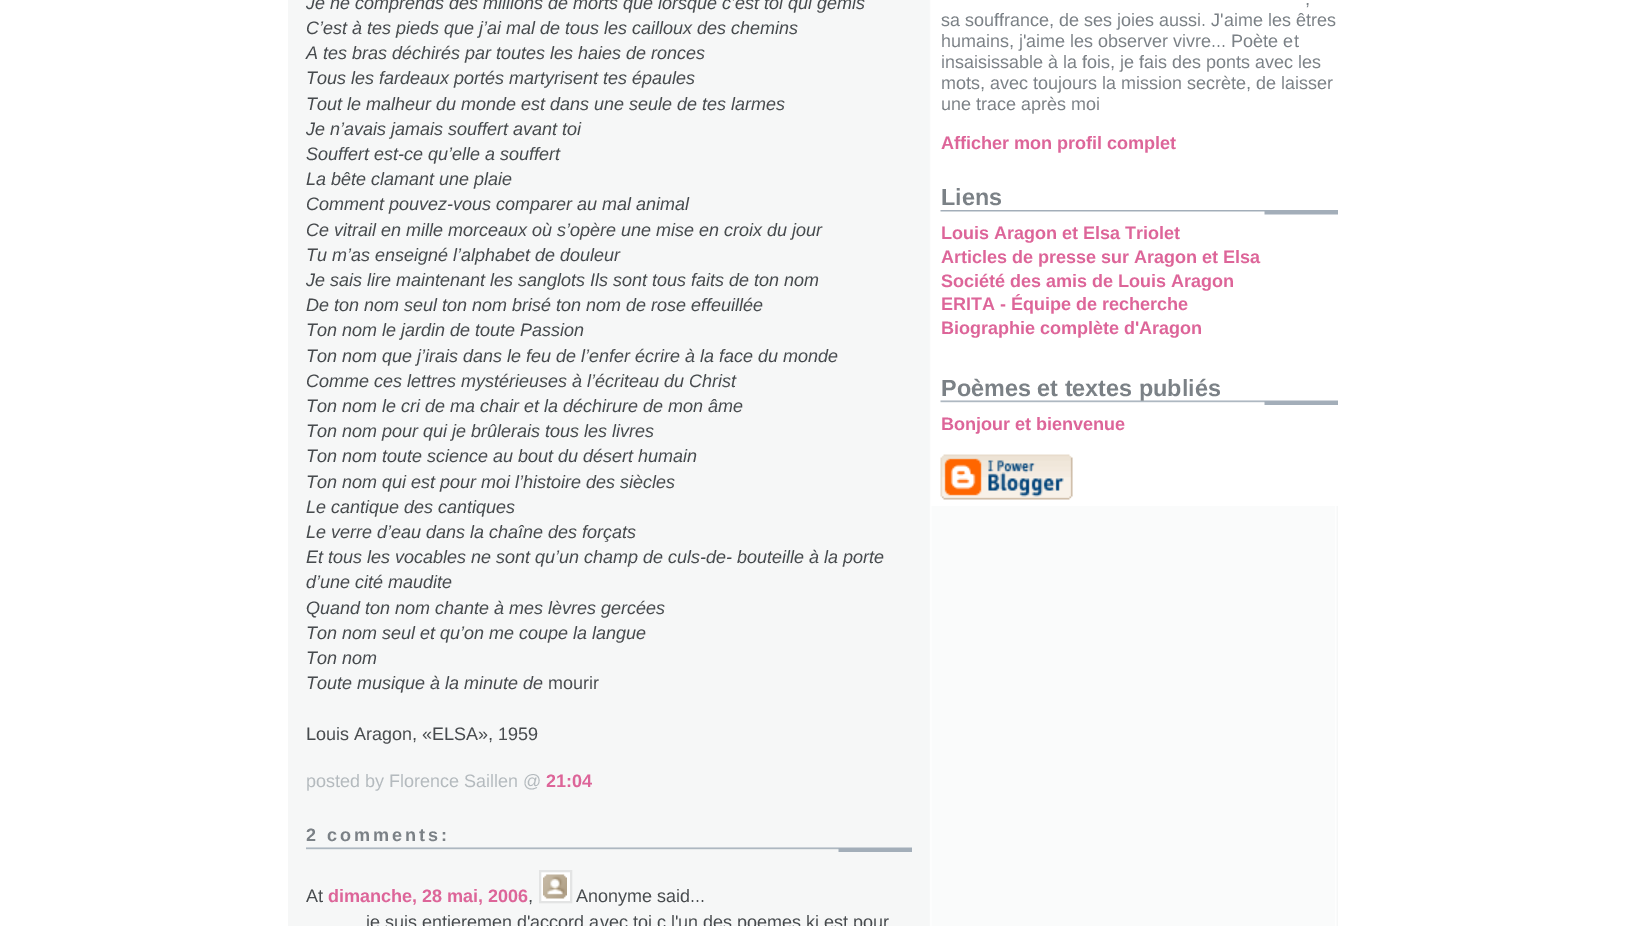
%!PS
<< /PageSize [1625 926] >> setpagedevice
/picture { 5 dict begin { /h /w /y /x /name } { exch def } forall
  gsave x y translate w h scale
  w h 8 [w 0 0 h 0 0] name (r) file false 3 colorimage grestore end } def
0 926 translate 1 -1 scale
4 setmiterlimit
1 setgray
0 0 1625 926 rectfill
(img1.rgb) 288 0 1050 926 picture
/LiberationSans-Italic [18 0 0 -18 0 0] selectfont
0.278 0.294 0.306 setrgbcolor
306 9 moveto (Je ne comprends des millions de morts que lorsque c’est toi qui gémis) show
306 34 moveto (C’est à tes pieds que j’ai mal de tous les cailloux des chemins) show
306 59 moveto (A tes bras déchirés par toutes les haies de ronces) show
306 84 moveto (Tous les fardeaux portés martyrisent tes épaules) show
306 110 moveto (Tout le malheur du monde est dans une seule de tes larmes) show
306 135 moveto (Je n’avais jamais souffert avant toi) show
306 160 moveto (Souffert est-ce qu’elle a souffert) show
306 185 moveto (La bête clamant une plaie) show
306 210 moveto (Comment pouvez-vous comparer au mal animal) show
306 236 moveto (Ce vitrail en mille morceaux où s’opère une mise en croix du jour) show
306 261 moveto (Tu m’as enseigné l’alphabet de douleur) show
306 286 moveto (Je sais lire maintenant les sanglots Ils sont tous faits de ton nom) show
306 311 moveto (De ton nom seul ton nom brisé ton nom de rose effeuillée) show
306 336 moveto (Ton nom le jardin de toute Passion) show
306 362 moveto (Ton nom que j’irais dans le feu de l’enfer écrire à la face du monde) show
306 387 moveto (Comme ces lettres mystérieuses à l’écriteau du Christ) show
306 412 moveto (Ton nom le cri de ma chair et la déchirure de mon âme) show
306 437 moveto (Ton nom pour qui je brûlerais tous les livres) show
306 462 moveto (Ton nom toute science au bout du désert humain) show
306 488 moveto (Ton nom qui est pour moi l’histoire des siècles) show
306 513 moveto (Le cantique des cantiques) show
306 538 moveto (Le verre d’eau dans la chaîne des forçats) show
306 563 moveto (Et tous les vocables ne sont qu’un champ de culs-de- bouteille à la porte) show
306 588 moveto (d’une cité maudite) show
306 614 moveto (Quand ton nom chante à mes lèvres gercées) show
306 639 moveto (Ton nom seul et qu’on me coupe la langue) show
306 664 moveto (Ton nom) show
306 689 moveto (Toute musique à la minute de) show
/LiberationSans-Regular [18 0 0 -18 0 0] selectfont
548 689 moveto (mourir) show
306 740 moveto (Louis Aragon, «ELSA», 1959) show
0.706 0.729 0.745 setrgbcolor
306 787 moveto (posted by Florence Saillen @) show
/LiberationSans-Bold [18 0 0 -18 0 0] selectfont
0.867 0.396 0.6 setrgbcolor
546 787 moveto (21:04) show
(img2.rgb) 306 847 606 5 picture
0.482 0.506 0.525 setrgbcolor
306 841 moveto 3 0 (2 comments:) ashow
1 setgray
newpath 540 871 moveto 571 871 lineto 571 902 lineto 540 902 lineto closepath gsave fill grestore
0.89 0.894 0.894 setrgbcolor
2 setlinewidth
stroke
/LiberationSans-Regular [18 0 0 -18 0 0] selectfont
0.278 0.294 0.306 setrgbcolor
306 902 moveto (At) show
/LiberationSans-Bold [18 0 0 -18 0 0] selectfont
0.867 0.396 0.6 setrgbcolor
328 902 moveto (dimanche, 28 mai, 2006) show
/LiberationSans-Regular [18 0 0 -18 0 0] selectfont
0.278 0.294 0.306 setrgbcolor
528 902 moveto (,) show
(img3.rgb) 543 874 24 25 picture
576 902 moveto (Anonyme said...) show
366 928 moveto (je suis entieremen d'accord avec toi c l'un des poemes ki est pour) show
1 setgray
931 0 407 506 rectfill
0.482 0.506 0.525 setrgbcolor
1305 5 moveto (,) show
941 26 moveto (sa souffrance, de ses joies aussi. J'aime les êtres) show
941 47 moveto (humains, j'aime les observer vivre... Poète et) show
941 68 moveto (insaisissable à la fois, je fais des ponts avec les) show
941 89 moveto (mots, avec toujours la mission secrète, de laisser) show
941 110 moveto (une trace après moi) show
/LiberationSans-Bold [18 0 0 -18 0 0] selectfont
0.867 0.396 0.6 setrgbcolor
941 149 moveto (Afficher mon profil complet) show
(img4.rgb) 940 210 398 5 picture
/LiberationSans-Bold [23.4 0 0 -23.4 0 0] selectfont
0.482 0.506 0.525 setrgbcolor
941 205 moveto (Liens) show
/LiberationSans-Bold [18 0 0 -18 0 0] selectfont
0.867 0.396 0.6 setrgbcolor
941 239 moveto (Louis Aragon et Elsa Triolet) show
941 263 moveto (Articles de presse sur Aragon et Elsa) show
941 287 moveto (Société des amis de Louis Aragon) show
941 310 moveto (ERITA - Équipe de recherche) show
941 334 moveto (Biographie complète d'Aragon) show
(img5.rgb) 940 400 398 5 picture
/LiberationSans-Bold [23.4 0 0 -23.4 0 0] selectfont
0.482 0.506 0.525 setrgbcolor
941 396 moveto (Poèmes et textes publiés) show
/LiberationSans-Bold [18 0 0 -18 0 0] selectfont
0.867 0.396 0.6 setrgbcolor
941 430 moveto (Bonjour et bienvenue) show
(img6.rgb) 940 454 133 46 picture
showpage
